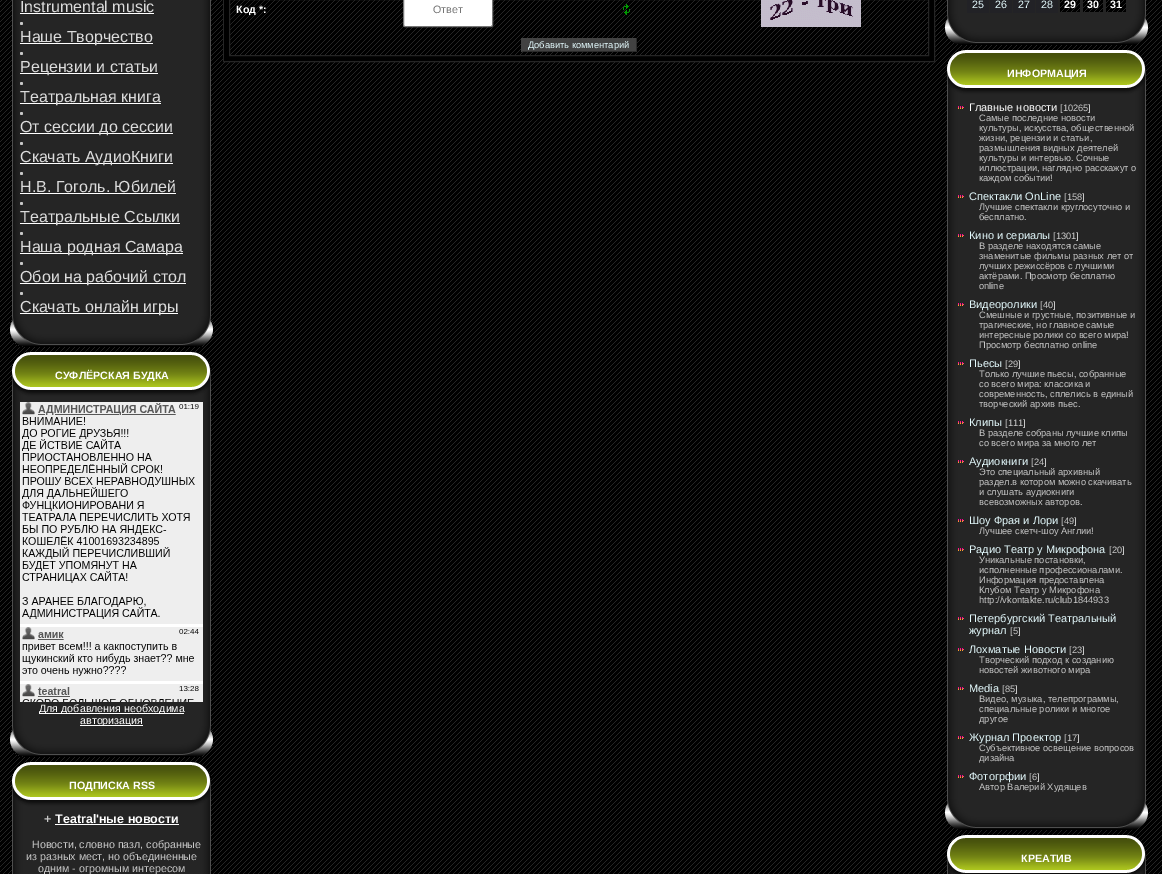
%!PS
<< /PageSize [1162 874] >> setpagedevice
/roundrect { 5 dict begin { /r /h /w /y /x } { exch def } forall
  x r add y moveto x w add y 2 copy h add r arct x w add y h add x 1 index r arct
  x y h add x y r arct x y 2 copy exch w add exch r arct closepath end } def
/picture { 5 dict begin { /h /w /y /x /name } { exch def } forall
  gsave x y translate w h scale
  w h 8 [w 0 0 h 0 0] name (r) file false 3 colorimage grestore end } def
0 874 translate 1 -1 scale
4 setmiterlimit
1 setgray
0 0 1162 874 rectfill
(img1.rgb) 0 0 1162 874 picture
(img2.rgb) 12 0 199 316 picture
/LiberationSans-Regular [16 0 0 -16 0 0] selectfont
0.863 setgray
20 12 moveto (Instrumental music) show
1 setgray
20 13 134 1 rectfill
0.784 setgray
newpath 21.5 23.5 1.5 0 360 arc closepath fill
1 setgray
20 43 133 1 rectfill
0.863 setgray
20 42 moveto (Наше Творчество) show
0.784 setgray
newpath 21.5 53.5 1.5 0 360 arc closepath fill
1 setgray
20 73 138 1 rectfill
0.863 setgray
20 72 moveto (Рецензии и статьи) show
0.784 setgray
newpath 21.5 83.5 1.5 0 360 arc closepath fill
1 setgray
20 103 141 1 rectfill
0.863 setgray
20 102 moveto (Театральная книга) show
0.784 setgray
newpath 21.5 113.5 1.5 0 360 arc closepath fill
1 setgray
20 133 153 1 rectfill
0.863 setgray
20 132 moveto (От сессии до сессии) show
0.784 setgray
newpath 21.5 143.5 1.5 0 360 arc closepath fill
1 setgray
20 163 153 1 rectfill
0.863 setgray
20 162 moveto (Скачать АудиоКниги) show
0.784 setgray
newpath 21.5 173.5 1.5 0 360 arc closepath fill
0.863 setgray
20 192 moveto (Н.В. Гоголь. Юбилей) show
1 setgray
20 193 156 1 rectfill
0.784 setgray
newpath 21.5 203.5 1.5 0 360 arc closepath fill
1 setgray
20 223 160 1 rectfill
0.863 setgray
20 222 moveto (Театральные Ссылки) show
0.784 setgray
newpath 21.5 233.5 1.5 0 360 arc closepath fill
1 setgray
20 253 163 1 rectfill
0.863 setgray
20 252 moveto (Наша родная Самара) show
0.784 setgray
newpath 21.5 263.5 1.5 0 360 arc closepath fill
1 setgray
20 283 166 1 rectfill
0.863 setgray
20 282 moveto (Обои на рабочий стол) show
0.784 setgray
newpath 21.5 293.5 1.5 0 360 arc closepath fill
1 setgray
20 313 158 1 rectfill
0.863 setgray
20 312 moveto (Скачать онлайн игры) show
(img3.rgb) 10 316 203 31 picture
(img4.rgb) 12 352 199 45 picture
/LiberationSans-Bold [10.7 0 0 -10.7 0 0] selectfont
1 setgray
55 379 moveto (СУФЛЁРСКАЯ БУДКА) show
(img5.rgb) 12 397 199 329 picture
(img6.rgb) 20 402 183 300 picture
39 713 145 1 rectfill
/LiberationSans-Regular [10.7 0 0 -10.7 0 0] selectfont
39 712 moveto (Для добавления необходима) show
80 725 63 1 rectfill
80 724 moveto (авторизация) show
(img3.rgb) 10 726 203 31 picture
(img4.rgb) 12 762 199 45 picture
/LiberationSans-Bold [10.7 0 0 -10.7 0 0] selectfont
69 789 moveto (ПОДПИСКА RSS) show
(img7.rgb) 12 807 199 67 picture
/LiberationSans-Bold [12.5 0 0 -12.5 0 0] selectfont
0.784 setgray
44 823 moveto (+) show
1 setgray
55 823 moveto (Teatral'ные новости) show
55 824 124 1 rectfill
/LiberationSans-Regular [10.7 0 0 -10.7 0 0] selectfont
0.784 setgray
32 848 moveto (Новости, словно пазл, собранные) show
26 860 moveto (из разных мест, но объединенные) show
38 872 moveto (одним - огромным интересом) show
0.145 setgray
223.5 -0.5 711 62 rectstroke
0 setgray
224 0 710 61 rectfill
(img8.rgb) 230 0 698 55 picture
0.145 setgray
229.5 -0.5 699 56 rectstroke
/LiberationSans-Bold [10.7 0 0 -10.7 0 0] selectfont
1 setgray
236 13 moveto (Код *:) show
403.5 -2.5 89 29 1.5 roundrect gsave fill grestore
0.463 setgray
stroke
/LiberationSans-Regular [10.7 0 0 -10.7 0 0] selectfont
0.459 setgray
433 13 moveto (Ответ) show
(img9.rgb) 623 4 7 11 picture
(img10.rgb) 761 0 100 27 picture
0.259 setgray
522 38 114 13 rectfill
0.173 setgray
636 38 1 14 rectfill
521 51 116 1 rectfill
0.259 setgray
521 38 1 14 rectfill
/LiberationSans-Regular [9.3 0 0 -9.3 0 0] selectfont
0.894 0.98 0.992 setrgbcolor
528 48 moveto (Добавить комментарий) show
(img11.rgb) 947 0 199 14 picture
0.133 0.133 0.149 setrgbcolor
967 0 22 13 rectfill
/LiberationSans-Regular [10.7 0 0 -10.7 0 0] selectfont
0.894 0.98 0.992 setrgbcolor
972 8 moveto (25) show
0.133 0.133 0.149 setrgbcolor
990 0 22 13 rectfill
0.894 0.98 0.992 setrgbcolor
995 8 moveto (26) show
0.133 0.133 0.149 setrgbcolor
1013 0 22 13 rectfill
0.894 0.98 0.992 setrgbcolor
1018 8 moveto (27) show
0.133 0.133 0.149 setrgbcolor
1036 0 22 13 rectfill
0.894 0.98 0.992 setrgbcolor
1041 8 moveto (28) show
(img12.rgb) 1060 0 20 12 picture
/LiberationSans-Bold [10.7 0 0 -10.7 0 0] selectfont
1 setgray
1064 8 moveto (29) show
(img12.rgb) 1083 0 20 12 picture
1087 8 moveto (30) show
(img12.rgb) 1106 0 20 12 picture
1110 8 moveto (31) show
(img13.rgb) 945 14 203 31 picture
(img14.rgb) 947 50 199 45 picture
1007 77 moveto (ИНФОРМАЦИЯ) show
(img15.rgb) 947 95 199 704 picture
(img16.rgb) 958 106 6 3 picture
/LiberationSans-Regular [11 0 0 -11 0 0] selectfont
969 111 moveto (Главные новости) show
/LiberationSans-Regular [9.3 0 0 -9.3 0 0] selectfont
0.784 setgray
1060 111 moveto ([10265]) show
979 121 moveto (Самые последние новости) show
979 131 moveto (культуры, искусства, общественной) show
979 141 moveto (жизни, рецензии и статьи,) show
979 151 moveto (размышления видных деятелей) show
979 161 moveto (культуры и интервью. Сочные) show
979 171 moveto (иллюстрации, наглядно расскажут о) show
979 181 moveto (каждом событии!) show
(img16.rgb) 958 195 6 3 picture
/LiberationSans-Regular [11 0 0 -11 0 0] selectfont
0.894 0.98 0.992 setrgbcolor
969 200 moveto (Спектакли OnLine) show
/LiberationSans-Regular [9.3 0 0 -9.3 0 0] selectfont
0.784 setgray
1064 200 moveto ([158]) show
979 210 moveto (Лучшие спектакли круглосуточно и) show
979 220 moveto (бесплатно.) show
(img16.rgb) 958 234 6 3 picture
/LiberationSans-Regular [11 0 0 -11 0 0] selectfont
0.894 0.98 0.992 setrgbcolor
969 239 moveto (Кино и сериалы) show
/LiberationSans-Regular [9.3 0 0 -9.3 0 0] selectfont
0.784 setgray
1053 239 moveto ([1301]) show
979 249 moveto (В разделе находятся самые) show
979 259 moveto (знаменитые фильмы разных лет от) show
979 269 moveto (лучших режиссёров с лучшими) show
979 279 moveto (актёрами. Просмотр бесплатно) show
979 289 moveto (online) show
(img16.rgb) 958 303 6 3 picture
/LiberationSans-Regular [11 0 0 -11 0 0] selectfont
0.894 0.98 0.992 setrgbcolor
969 308 moveto (Видеоролики) show
/LiberationSans-Regular [9.3 0 0 -9.3 0 0] selectfont
0.784 setgray
1040 308 moveto ([40]) show
979 318 moveto (Смешные и грустные, позитивные и) show
979 328 moveto (трагические, но главное самые) show
979 338 moveto (интересные ролики со всего мира!) show
979 348 moveto (Просмотр бесплатно online) show
(img16.rgb) 958 362 6 3 picture
/LiberationSans-Regular [11 0 0 -11 0 0] selectfont
0.894 0.98 0.992 setrgbcolor
969 367 moveto (Пьесы) show
/LiberationSans-Regular [9.3 0 0 -9.3 0 0] selectfont
0.784 setgray
1005 367 moveto ([29]) show
979 377 moveto (Только лучшие пьесы, собранные) show
979 387 moveto (со всего мира: классика и) show
979 397 moveto (современность, сплелись в единый) show
979 407 moveto (творческий архив пьес.) show
(img16.rgb) 958 421 6 3 picture
/LiberationSans-Regular [11 0 0 -11 0 0] selectfont
0.894 0.98 0.992 setrgbcolor
969 426 moveto (Клипы) show
/LiberationSans-Regular [9.3 0 0 -9.3 0 0] selectfont
0.784 setgray
1005 426 moveto ([111]) show
979 436 moveto (В разделе собраны лучшие клипы) show
979 446 moveto (со всего мира за много лет) show
(img16.rgb) 958 460 6 3 picture
/LiberationSans-Regular [11 0 0 -11 0 0] selectfont
0.894 0.98 0.992 setrgbcolor
969 465 moveto (Аудиокниги) show
/LiberationSans-Regular [9.3 0 0 -9.3 0 0] selectfont
0.784 setgray
1031 465 moveto ([24]) show
979 475 moveto (Это специальный архивный) show
979 485 moveto (раздел.в котором можно скачивать) show
979 495 moveto (и слушать аудиокниги) show
979 505 moveto (всевозможных авторов.) show
(img16.rgb) 958 519 6 3 picture
/LiberationSans-Regular [11 0 0 -11 0 0] selectfont
0.894 0.98 0.992 setrgbcolor
969 524 moveto (Шоу Фрая и Лори) show
/LiberationSans-Regular [9.3 0 0 -9.3 0 0] selectfont
0.784 setgray
1061 524 moveto ([49]) show
979 534 moveto (Лучшее скетч-шоу Англии!) show
(img16.rgb) 958 548 6 3 picture
/LiberationSans-Regular [11 0 0 -11 0 0] selectfont
0.894 0.98 0.992 setrgbcolor
969 553 moveto (Радио Театр у Микрофона) show
/LiberationSans-Regular [9.3 0 0 -9.3 0 0] selectfont
0.784 setgray
1109 553 moveto ([20]) show
979 563 moveto (Уникальные постановки,) show
979 573 moveto (исполненные профессионалами.) show
979 583 moveto (Информация предоставлена) show
979 593 moveto (Клубом Театр у Микрофона) show
979 603 moveto (http://vkontakte.ru/club1844933) show
(img16.rgb) 958 617 6 3 picture
/LiberationSans-Regular [11 0 0 -11 0 0] selectfont
0.894 0.98 0.992 setrgbcolor
969 622 moveto (Петербургский Театральный) show
969 634 moveto (журнал) show
/LiberationSans-Regular [9.3 0 0 -9.3 0 0] selectfont
0.784 setgray
1010 634 moveto ([5]) show
(img16.rgb) 958 648 6 3 picture
/LiberationSans-Regular [11 0 0 -11 0 0] selectfont
0.894 0.98 0.992 setrgbcolor
969 653 moveto (Лохматые Новости) show
/LiberationSans-Regular [9.3 0 0 -9.3 0 0] selectfont
0.784 setgray
1069 653 moveto ([23]) show
979 663 moveto (Творческий подход к созданию) show
979 673 moveto (новостей животного мира) show
(img16.rgb) 958 687 6 3 picture
/LiberationSans-Regular [11 0 0 -11 0 0] selectfont
0.894 0.98 0.992 setrgbcolor
969 692 moveto (Media) show
/LiberationSans-Regular [9.3 0 0 -9.3 0 0] selectfont
0.784 setgray
1002 692 moveto ([85]) show
979 702 moveto (Видео, музыка, телепрограммы,) show
979 712 moveto (специальные ролики и многое) show
979 722 moveto (другое) show
(img16.rgb) 958 736 6 3 picture
/LiberationSans-Regular [11 0 0 -11 0 0] selectfont
0.894 0.98 0.992 setrgbcolor
969 741 moveto (Журнал Проектор) show
/LiberationSans-Regular [9.3 0 0 -9.3 0 0] selectfont
0.784 setgray
1064 741 moveto ([17]) show
979 751 moveto (Субъективное освещение вопросов) show
979 761 moveto (дизайна) show
(img16.rgb) 958 775 6 3 picture
/LiberationSans-Regular [11 0 0 -11 0 0] selectfont
0.894 0.98 0.992 setrgbcolor
969 780 moveto (Фотогрфии) show
/LiberationSans-Regular [9.3 0 0 -9.3 0 0] selectfont
0.784 setgray
1029 780 moveto ([6]) show
979 790 moveto (Автор Валерий Худящев) show
(img13.rgb) 945 799 203 31 picture
(img17.rgb) 947 835 199 39 picture
/LiberationSans-Bold [10.7 0 0 -10.7 0 0] selectfont
1 setgray
1021 862 moveto (КРЕАТИВ) show
showpage
